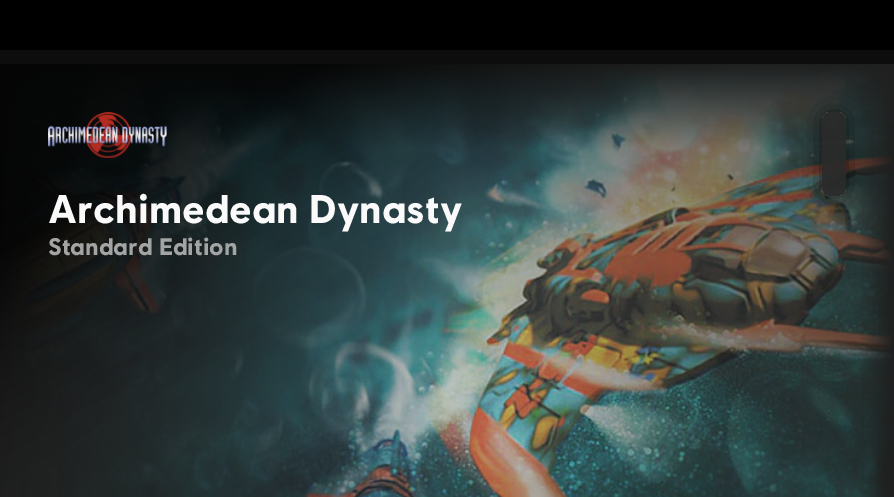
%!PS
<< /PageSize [894 497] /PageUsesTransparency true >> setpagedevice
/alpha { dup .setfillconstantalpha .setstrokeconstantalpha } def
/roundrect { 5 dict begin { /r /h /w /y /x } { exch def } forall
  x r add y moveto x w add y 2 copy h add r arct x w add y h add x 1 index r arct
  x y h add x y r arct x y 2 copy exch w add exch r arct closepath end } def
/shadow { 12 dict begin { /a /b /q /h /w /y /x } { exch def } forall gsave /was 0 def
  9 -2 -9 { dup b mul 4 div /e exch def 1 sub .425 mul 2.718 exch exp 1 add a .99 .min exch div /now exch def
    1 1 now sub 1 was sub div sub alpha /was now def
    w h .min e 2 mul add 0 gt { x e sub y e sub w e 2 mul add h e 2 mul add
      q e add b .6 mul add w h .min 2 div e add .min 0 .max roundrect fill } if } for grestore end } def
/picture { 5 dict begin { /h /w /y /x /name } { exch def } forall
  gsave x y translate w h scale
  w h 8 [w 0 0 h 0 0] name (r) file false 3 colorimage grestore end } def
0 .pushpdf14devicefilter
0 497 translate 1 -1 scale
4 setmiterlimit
1 setgray
0 0 894 497 rectfill
gsave newpath 0 50 moveto 894 50 lineto 894 64 lineto 0 64 lineto closepath clip newpath
<< /ShadingType 2 /ColorSpace /DeviceRGB /Coords [481 -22 413 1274] /Extend [true true] /Function << /FunctionType 3 /Domain [0 1] /Functions [<< /FunctionType 2 /Domain [0 1] /C0 [0.051 0.051 0.051] /C1 [0.051 0.051 0.051] /N 1 >> << /FunctionType 2 /Domain [0 1] /C0 [0.051 0.051 0.051] /C1 [0.09 0.047 0.086] /N 1 >> << /FunctionType 2 /Domain [0 1] /C0 [0.09 0.047 0.086] /C1 [0.047 0.086 0.133] /N 1 >> << /FunctionType 2 /Domain [0 1] /C0 [0.047 0.086 0.133] /C1 [0.047 0.086 0.133] /N 1 >>] /Bounds [0.03 0.6 0.95] /Encode [0 1 0 1 0 1 0 1] >> >> shfill grestore
0 setgray
0 0 894 50 rectfill
(img1.rgb) 0 64 894 433 picture
(img2.rgb) 48 112 119 46 picture
gsave
newpath 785 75 moveto 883 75 lineto 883 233 lineto 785 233 lineto closepath 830 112 moveto 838 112 lineto 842.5 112 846 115.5 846 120 curveto 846 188 lineto 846 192.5 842.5 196 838 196 curveto 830 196 lineto 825.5 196 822 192.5 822 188 curveto 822 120 lineto 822 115.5 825.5 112 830 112 curveto closepath eoclip newpath
822 112 24 84 8 12 0.6 shadow
grestore
0.6 alpha
1 setgray
822 112 24 84 8 roundrect fill
0.82 alpha
0.051 setgray
822 112 24 84 8 roundrect fill
/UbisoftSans-Bold [40 0 0 -40 0 0] selectfont
1 alpha
0.98 setgray
48 223 moveto (Archimedean Dynasty) show
/UbisoftSans-Bold [24 0 0 -24 0 0] selectfont
0.639 0.647 0.643 setrgbcolor
48 255 moveto (Standard Edition) show
.poppdf14devicefilter showpage
